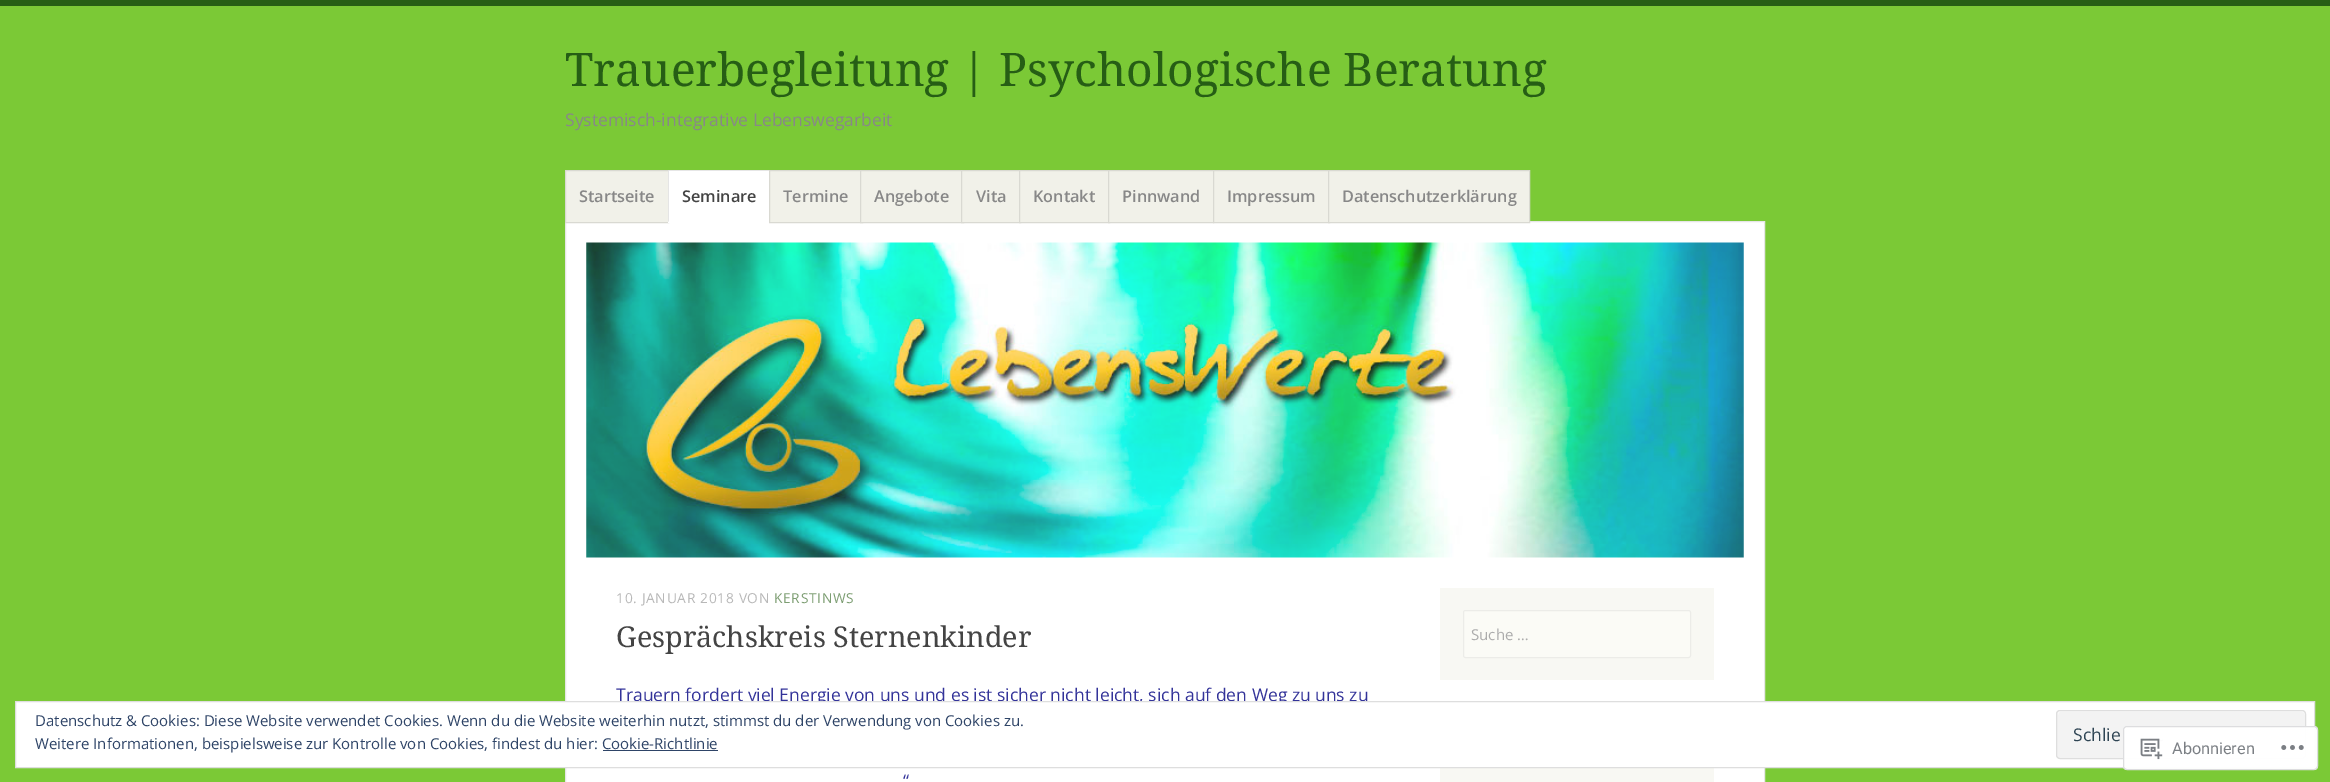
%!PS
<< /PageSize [2330 782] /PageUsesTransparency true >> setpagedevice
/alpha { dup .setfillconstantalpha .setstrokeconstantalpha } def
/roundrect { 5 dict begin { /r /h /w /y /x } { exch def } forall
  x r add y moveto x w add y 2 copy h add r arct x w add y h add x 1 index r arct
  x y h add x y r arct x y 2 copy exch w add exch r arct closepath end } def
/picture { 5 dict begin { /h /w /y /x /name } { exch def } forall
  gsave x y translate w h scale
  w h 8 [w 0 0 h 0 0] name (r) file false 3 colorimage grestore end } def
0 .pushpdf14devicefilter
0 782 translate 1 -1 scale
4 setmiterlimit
0.482 0.788 0.212 setrgbcolor
0 0 2330 782 rectfill
0.149 0.369 0.082 setrgbcolor
0 0 2330 6 rectfill
/DroidSerif-Regular [46.25 0 0 -46.25 0 0] selectfont
565 86 moveto (Trauerbegleitung | Psychologische Beratung) show
/OpenSans-Regular [17.5 0 0 -17.5 0 0] selectfont
0.533 setgray
565 126 moveto (Systemisch-integrative Lebenswegarbeit) show
1 setgray
newpath 565.5 221.5 moveto 1764.5 221.5 lineto 1764.5 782.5 lineto 565.5 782.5 lineto closepath gsave fill grestore
0.902 setgray
stroke
0.945 0.945 0.914 setrgbcolor
newpath 565.5 170.5 moveto 668.5 170.5 lineto 668.5 222.5 lineto 565.5 222.5 lineto closepath gsave fill grestore
0.851 0.851 0.824 setrgbcolor
stroke
/OpenSans-SemiBold [16.25 0 0 -16.25 0 0] selectfont
0.533 setgray
579 202 moveto (Startseite) show
1 setgray
668 170 101 53 rectfill
0.902 setgray
newpath 668 170 moveto 770 170 lineto 769 171 lineto 669 171 lineto closepath fill
1 setgray
newpath 770 222 moveto 668 222 lineto 669 221 lineto 769 221 lineto closepath fill
0.1 alpha
0 setgray
newpath 668 222 moveto 668 170 lineto 669 171 lineto 669 221 lineto closepath fill
1 alpha
0.267 setgray
682 202 moveto (Seminare) show
0.945 0.945 0.914 setrgbcolor
770 171 90 51 rectfill
0.851 0.851 0.824 setrgbcolor
769.5 170.5 93 52 rectstroke
0.533 setgray
783 202 moveto (Termine) show
0.945 0.945 0.914 setrgbcolor
861 171 100 51 rectfill
0.851 0.851 0.824 setrgbcolor
860.5 170.5 103 52 rectstroke
0.533 setgray
874 202 moveto (Angebote) show
0.945 0.945 0.914 setrgbcolor
962 171 57 51 rectfill
0.851 0.851 0.824 setrgbcolor
961.5 170.5 59 52 rectstroke
0.533 setgray
976 202 moveto (Vita) show
0.945 0.945 0.914 setrgbcolor
1020 171 88 51 rectfill
0.851 0.851 0.824 setrgbcolor
1019.5 170.5 90 52 rectstroke
0.533 setgray
1033 202 moveto (Kontakt) show
0.945 0.945 0.914 setrgbcolor
newpath 1108.5 170.5 moveto 1213.5 170.5 lineto 1213.5 222.5 lineto 1108.5 222.5 lineto closepath gsave fill grestore
0.851 0.851 0.824 setrgbcolor
stroke
0.533 setgray
1122 202 moveto (Pinnwand) show
0.945 0.945 0.914 setrgbcolor
1214 171 114 51 rectfill
0.851 0.851 0.824 setrgbcolor
1213.5 170.5 116 52 rectstroke
0.533 setgray
1227 202 moveto (Impressum) show
0.945 0.945 0.914 setrgbcolor
newpath 1328.5 170.5 moveto 1529.5 170.5 lineto 1529.5 222.5 lineto 1328.5 222.5 lineto closepath gsave fill grestore
0.851 0.851 0.824 setrgbcolor
stroke
0.533 setgray
1342 202 moveto (Datenschutzerklärung) show
(img1.rgb) 586 242 1158 316 picture
/OpenSans-Regular [13.75 0 0 -13.75 0 0] selectfont
0.722 setgray
616 603 moveto 0.7 0 (10. JANUAR 2018 VON) ashow
0.49 0.62 0.451 setrgbcolor
774 603 moveto 0.7 0 (KERSTINWS) ashow
/DroidSerif-Regular [28.75 0 0 -28.75 0 0] selectfont
0.267 setgray
616 647 moveto (Gesprächskreis Sternenkinder) show
/OpenSans-Regular [17.5 0 0 -17.5 0 0] selectfont
0.2 0.2 0.6 setrgbcolor
616 701 moveto (Trauern fordert viel Energie von uns und es ist sicher nicht leicht, sich auf den Weg zu uns zu) show
903 787 moveto (“) show
0.973 0.973 0.953 setrgbcolor
1440 588 274 92 rectfill
0.984 0.984 0.965 setrgbcolor
1463.5 610.5 227 47 2 roundrect gsave fill grestore
0.925 0.925 0.91 setrgbcolor
stroke
/OpenSans-Regular [15 0 0 -15 0 0] selectfont
0.675 setgray
1471 640 moveto (Suche …) show
0.973 0.973 0.953 setrgbcolor
1440 768 274 14 rectfill
1 setgray
newpath 15.5 701.5 moveto 2314.5 701.5 lineto 2314.5 767.5 lineto 15.5 767.5 lineto closepath gsave fill grestore
0.871 setgray
stroke
0.18 0.267 0.404 setrgbcolor
35 726 moveto (Datenschutz & Cookies: Diese Website verwendet Cookies. Wenn du die Website weiterhin nutzt, stimmst du der Verwendung von Cookies zu.) show
0.953 setgray
2056 710 250 49 4 roundrect fill
0.976 setgray
newpath 2060 712 moveto 2302 712 lineto 2304 712 2305 714 2305 715 curveto 2305 713 2305 711 2302 711 curveto 2060 711 lineto 2058 711 2058 713 2058 715 curveto 2058 714 2059 712 2060 712 curveto closepath fill
0.871 setgray
2056.5 710.5 249 48 3.5 roundrect stroke
/OpenSans-Regular [17.5 0 0 -17.5 0 0] selectfont
0.18 0.267 0.325 setrgbcolor
2073 741 moveto (Schlie) show
/OpenSans-Regular [15 0 0 -15 0 0] selectfont
0.18 0.267 0.404 setrgbcolor
35 749 moveto (Weitere Informationen, beispielsweise zur Kontrolle von Cookies, findest du hier: Cookie-Richtlinie) show
603 750 115 1 rectfill
0.98 alpha
1 setgray
2123 726 195 44 4 roundrect fill
0.863 0.863 0.871 setrgbcolor
2123.5 726.5 194 43 3.5 roundrect stroke
1 alpha
(img2.rgb) 2140 738 23 22 picture
/Roboto-Regular [16.25 0 0 -16.25 0 0] selectfont
0.482 0.498 0.518 setrgbcolor
2172 754 moveto (Abonnieren) show
(img3.rgb) 2281 745 23 5 picture
.poppdf14devicefilter showpage
